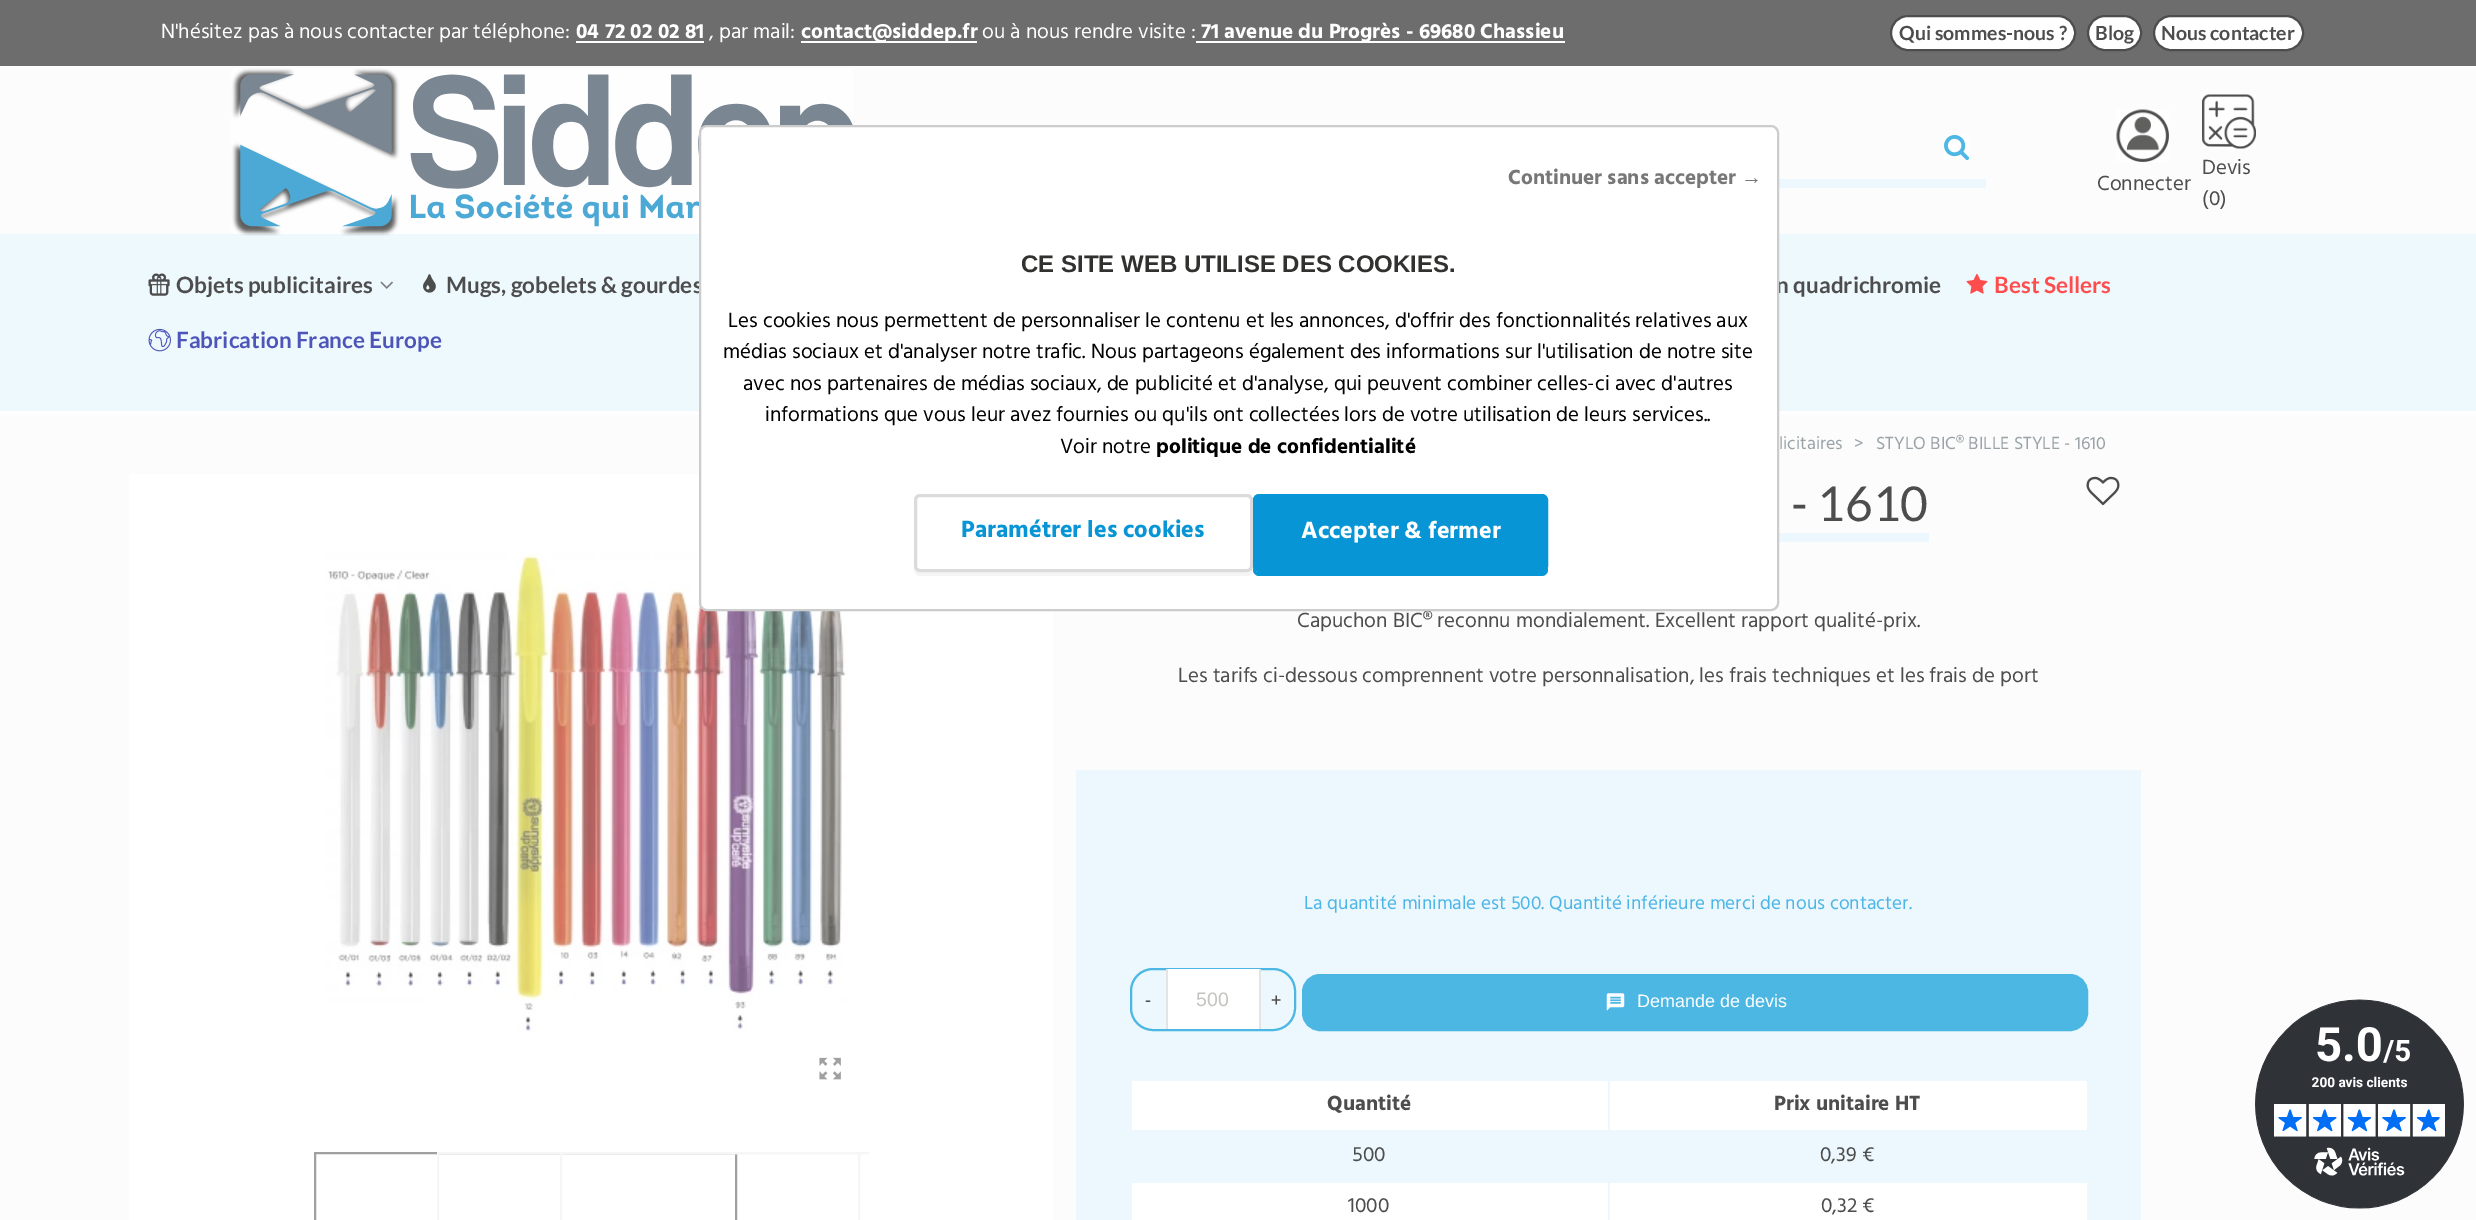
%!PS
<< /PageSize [2476 1220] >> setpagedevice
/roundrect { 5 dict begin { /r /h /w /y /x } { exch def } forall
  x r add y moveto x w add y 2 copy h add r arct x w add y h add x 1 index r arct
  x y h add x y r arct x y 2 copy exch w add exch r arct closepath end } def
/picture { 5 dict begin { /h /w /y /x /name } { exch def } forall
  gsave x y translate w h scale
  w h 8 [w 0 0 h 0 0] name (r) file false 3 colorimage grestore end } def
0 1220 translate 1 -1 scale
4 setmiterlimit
0.988 setgray
0 0 2476 1220 rectfill
0.427 setgray
0 0 2476 66 rectfill
/Hind-Regular [21 0 0 -21 0 0] selectfont
1 setgray
161 38 moveto (N'hésitez pas à nous contacter par téléphone:) show
/Hind-Bold [21 0 0 -21 0 0] selectfont
576 38 moveto (04 72 02 02 81) show
576 41 128 2 rectfill
/Hind-Regular [21 0 0 -21 0 0] selectfont
709 38 moveto (, par mail:) show
801 41 176 2 rectfill
/Hind-Bold [21 0 0 -21 0 0] selectfont
801 38 moveto (contact@siddep.fr) show
/Hind-Regular [21 0 0 -21 0 0] selectfont
982 38 moveto (ou à nous rendre visite :) show
1196 41 369 2 rectfill
/Hind-Bold [21 0 0 -21 0 0] selectfont
1201 38 moveto (71 avenue du Progrès - 69680 Chassieu) show
1891 16 184 34 17 roundrect gsave fill grestore
0.302 setgray
2 setlinewidth
stroke
/Lato-Bold [19.5 0 0 -19.5 0 0] selectfont
1899 40 moveto (Qui sommes-nous ?) show
1 setgray
2088 16 53 34 17 roundrect gsave fill grestore
0.302 setgray
stroke
2095 40 moveto (Blog) show
1 setgray
2154 16 149 34 17 roundrect gsave fill grestore
0.302 setgray
stroke
2161 40 moveto (Nous contacter) show
0.933 0.976 0.996 setrgbcolor
0 234 2476 177 rectfill
(img1.rgb) 231 68 622 168 picture
0.925 0.973 0.992 setrgbcolor
1779 179 207 9 rectfill
(img2.rgb) 1944 135 26 25 picture
(img3.rgb) 2116 109 53 53 picture
/Hind-Regular [21 0 0 -21 0 0] selectfont
0.302 setgray
2097 190 moveto (Connecter) show
(img4.rgb) 2202 94 54 55 picture
2202 174 moveto (Devis) show
2202 205 moveto (\(0\)) show
1 setgray
0 411 2476 3 rectfill
(img5.rgb) 148 273 22 23 picture
/Lato-Bold [22.5 0 0 -22.5 0 0] selectfont
0.302 setgray
176 293 moveto (Objets publicitaires) show
(img6.rgb) 380 281 13 8 picture
(img7.rgb) 423 274 13 19 picture
446 293 moveto (Mugs, gobelets & gourdes) show
1776 293 moveto (n quadrichromie) show
(img8.rgb) 1966 273 22 21 picture
1 0.302 0.302 setrgbcolor
1994 293 moveto (Best Sellers) show
(img9.rgb) 148 328 23 24 picture
0.302 0.337 0.722 setrgbcolor
176 348 moveto (Fabrication France Europe) show
/Hind-Regular [18 0 0 -18 0 0] selectfont
0.6 0.639 0.659 setrgbcolor
1779 449 moveto (licitaires) show
1854 449 moveto (>) show
1876 449 moveto (STYLO BIC® BILLE STYLE - 1610) show
1 setgray
129 474 924 746 rectfill
(img10.rgb) 326 552 521 480 picture
(img11.rgb) 819 1057 22 23 picture
0.627 setgray
315 1153 421 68 rectstroke
0.965 setgray
438 1153 421 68 rectstroke
gsave
314 1133 555 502 rectclip
561 1153 421 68 rectstroke
grestore
0.925 0.973 0.992 setrgbcolor
1779 533 150 9 rectfill
/Lato-Regular [48 0 0 -48 0 0] selectfont
0.302 setgray
1791 521 moveto (- 1610) show
(img12.rgb) 2086 476 34 30 picture
/Hind-Regular [21 0 0 -21 0 0] selectfont
1297 627 moveto (Capuchon BIC® reconnu mondialement. Excellent rapport qualité-prix.) show
1178 682 moveto (Les tarifs ci-dessous comprennent votre personnalisation, les frais techniques et les frais de port) show
0.925 0.973 0.992 setrgbcolor
1076 770 1065 450 rectfill
/Hind-Regular [19.2 0 0 -19.2 0 0] selectfont
0.302 0.714 0.906 setrgbcolor
1304 909 moveto (La quantité minimale est 500. Quantité inférieure merci de nous contacter.) show
0.302 0.718 0.894 setrgbcolor
1131 969 164 61 22 roundrect stroke
/LiberationSans-Regular [18 0 0 -18 0 0] selectfont
0.302 setgray
1145 1006 moveto (-) show
1 setgray
1168 969 91 60 rectfill
0.894 setgray
1259 969 2 60 rectfill
1166 969 2 60 rectfill
/LiberationSans-Regular [19.5 0 0 -19.5 0 0] selectfont
0.773 0.769 0.757 setrgbcolor
1196 1006 moveto (500) show
/LiberationSans-Regular [18 0 0 -18 0 0] selectfont
0.302 setgray
1271 1006 moveto (+) show
0.302 0.718 0.894 setrgbcolor
1304.5 976.5 781 52 15.5 roundrect gsave fill grestore
5 setlinewidth
stroke
(img13.rgb) 1606 993 19 18 picture
1 setgray
1637 1007 moveto (Demande de devis) show
1132 1081 476 49 rectfill
/Hind-Bold [21 0 0 -21 0 0] selectfont
0.302 setgray
1327 1110 moveto (Quantité) show
1 setgray
1610 1081 477 49 rectfill
0.302 setgray
1774 1110 moveto (Prix unitaire HT) show
/Hind-Regular [21 0 0 -21 0 0] selectfont
1352 1161 moveto (500) show
1820 1161 moveto (0,39 €) show
1 setgray
1132 1183 955 37 rectfill
0.302 setgray
1348 1212 moveto (1000) show
0.925 0.973 0.992 setrgbcolor
1608 1181 2 39 rectfill
0.302 setgray
1821 1212 moveto (0,32 €) show
1 setgray
700 126 1078 484 7 roundrect gsave fill grestore
0.8 setgray
2 setlinewidth
stroke
/Hind-Bold [21 0 0 -21 0 0] selectfont
0.467 setgray
1508 184 moveto (Continuer sans accepter) show
/LiberationSans-Bold [21 0 0 -21 0 0] selectfont
1741 184 moveto (→) show
/LiberationSans-Bold [24 0 0 -24 0 0] selectfont
0.192 0.192 0.188 setrgbcolor
1021 272 moveto (CE SITE WEB UTILISE DES COOKIES.) show
/Hind-Regular [21 0 0 -21 0 0] selectfont
0 setgray
728 327 moveto (Les cookies nous permettent de personnaliser le contenu et les annonces, d'offrir des fonctionnalités relatives aux) show
723 358 moveto (médias sociaux et d'analyser notre trafic. Nous partageons également des informations sur l'utilisation de notre site) show
743 390 moveto (avec nos partenaires de médias sociaux, de publicité et d'analyse, qui peuvent combiner celles-ci avec d'autres) show
765 421 moveto (informations que vous leur avez fournies ou qu'ils ont collectées lors de votre utilisation de leurs services..) show
1060 453 moveto (Voir notre) show
/Hind-Bold [21 0 0 -21 0 0] selectfont
1156 453 moveto (politique de confidentialité) show
0.961 setgray
newpath 914 568 moveto 914 570 lineto 914 573 917 576 920 576 curveto 1247 576 lineto 1250 576 1253 573 1253 570 curveto 1253 504 lineto 1252 502 lineto 1252 566 lineto 1252 569 1250 572 1246 572 curveto 920 572 lineto 917 572 915 570 914 568 curveto closepath fill
1 setgray
915.5 495.5 336 75 4.5 roundrect gsave fill grestore
0.859 setgray
3 setlinewidth
stroke
/Hind-Bold [24 0 0 -24 0 0] selectfont
0.031 0.584 0.839 setrgbcolor
961 537 moveto (Paramétrer les cookies) show
newpath 1253 568 moveto 1253 570 lineto 1253 573 1256 576 1259 576 curveto 1542 576 lineto 1545 576 1548 573 1548 570 curveto 1548 566 lineto 1548 569 1545 572 1542 572 curveto 1258 572 lineto 1256 572 1254 570 1253 568 curveto closepath fill
1254.5 495.5 292 75 4.5 roundrect gsave fill grestore
stroke
1 setgray
1301 538 moveto (Accepter & fermer) show
(img14.rgb) 2255 999 209 210 picture
showpage
